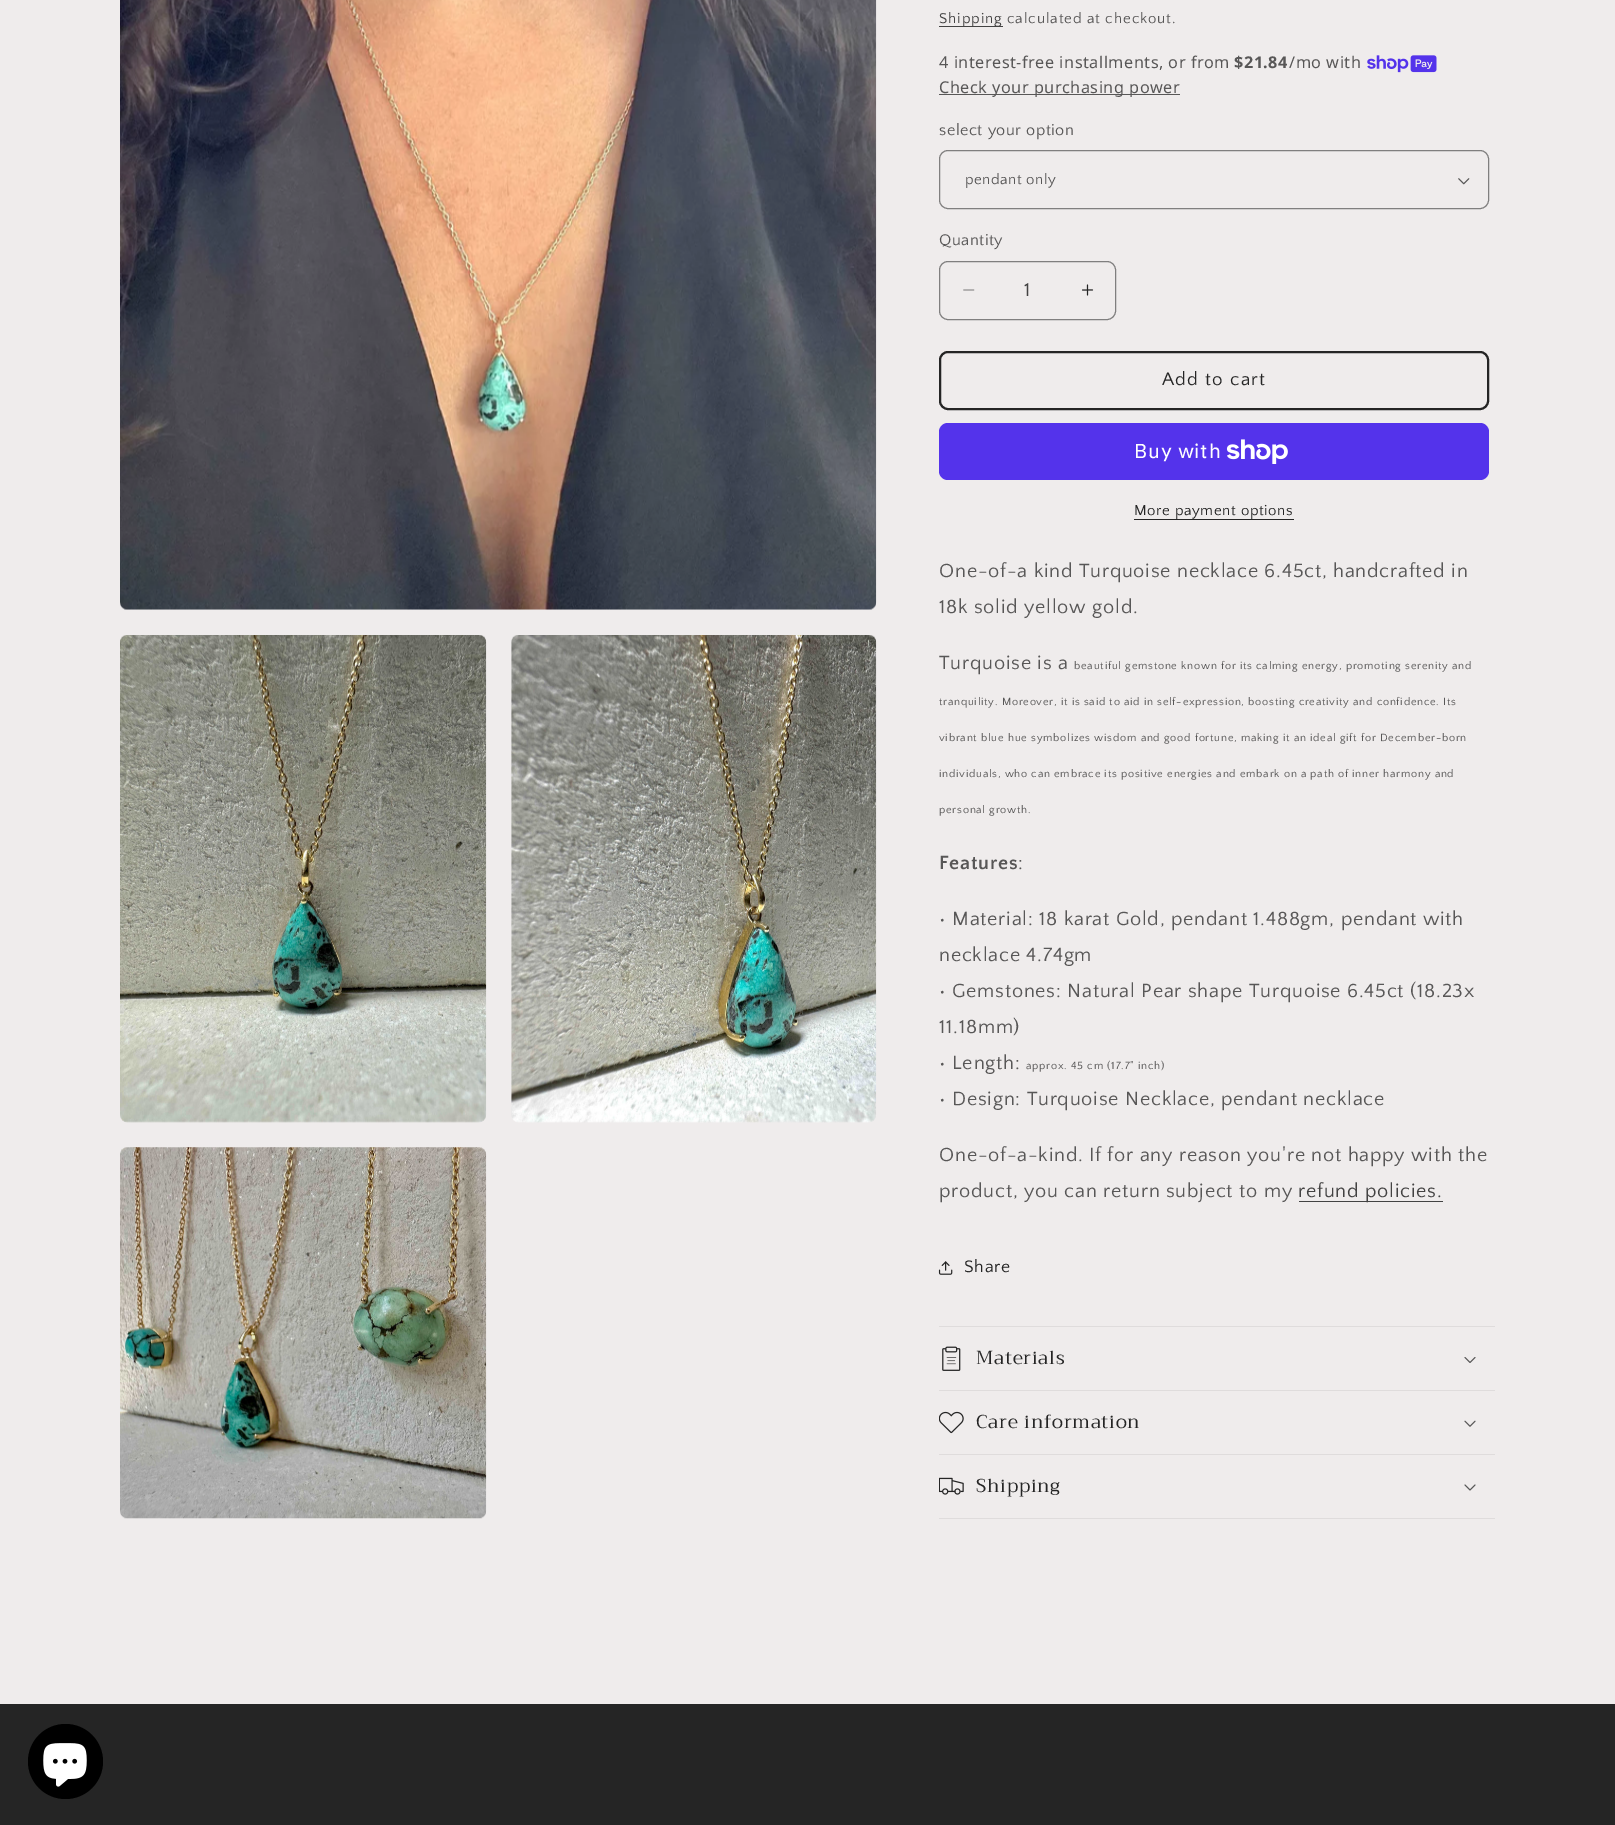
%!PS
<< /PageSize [1615 1825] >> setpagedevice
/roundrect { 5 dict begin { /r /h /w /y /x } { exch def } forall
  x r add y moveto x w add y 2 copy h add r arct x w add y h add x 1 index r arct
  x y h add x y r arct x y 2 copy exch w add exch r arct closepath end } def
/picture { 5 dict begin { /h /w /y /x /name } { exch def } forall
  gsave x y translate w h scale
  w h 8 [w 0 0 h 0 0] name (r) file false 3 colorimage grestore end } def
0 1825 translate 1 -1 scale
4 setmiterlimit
0.937 0.925 0.925 setrgbcolor
0 0 1615 1825 rectfill
(img1.rgb) 120 0 757 610 picture
(img2.rgb) 120 635 367 488 picture
(img3.rgb) 511 635 366 488 picture
(img4.rgb) 120 1147 367 372 picture
0.263 setgray
939 26 64 1 rectfill
/QuattrocentoSans-Regular [15 0 0 -15 0 0] selectfont
0.263 0.259 0.259 setrgbcolor
939 23 moveto 0.9 0 (Shipping) ashow
0.345 0.341 0.341 setrgbcolor
1007 23 moveto 0.9 0 (calculated at checkout.) ashow
/NotoSans-Regular [16.25 0 0 -16.25 0 0] selectfont
939 68 moveto 0.5 0 (4 interest-free installments, or from) ashow
/NotoSans-Bold [16.25 0 0 -16.25 0 0] selectfont
1234 68 moveto 0.5 0 ($21.84) ashow
/NotoSans-Regular [16.25 0 0 -16.25 0 0] selectfont
1289 68 moveto 0.5 0 (/mo with) ashow
(img5.rgb) 1367 55 70 18 picture
939 94 241 1 rectfill
939 93 moveto 0.5 0 (Check your purchasing power) ashow
/QuattrocentoSans-Regular [16.25 0 0 -16.25 0 0] selectfont
939 135 moveto 0.5 0 (select your option) ashow
(img6.rgb) 1458 178 12 7 picture
0.502 0.498 0.498 setrgbcolor
939.5 150.5 549 58 8.5 roundrect stroke
/QuattrocentoSans-Regular [15 0 0 -15 0 0] selectfont
0.345 0.341 0.341 setrgbcolor
965 184 moveto 0.5 0 (pendant only) ashow
/QuattrocentoSans-Regular [16.25 0 0 -16.25 0 0] selectfont
939 245 moveto 0.5 0 (Quantity) ashow
(img7.rgb) 963 289 12 2 picture
(img8.rgb) 1082 284 12 12 picture
0.502 0.498 0.498 setrgbcolor
939.5 261.5 176 58 8.5 roundrect stroke
/QuattrocentoSans-Regular [20 0 0 -20 0 0] selectfont
0.263 0.259 0.259 setrgbcolor
1024 296 moveto (1) show
0.145 setgray
2 setlinewidth
940 352 548 57 8 roundrect stroke
/QuattrocentoSans-Regular [18.75 0 0 -18.75 0 0] selectfont
1162 385 moveto 1.25 0 (Add to cart) ashow
0.329 0.2 0.922 setrgbcolor
939 423 550 57 9 roundrect fill
/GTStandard-Regular [20 0 0 -20 0 0] selectfont
1 setgray
1134 458 moveto 0.75 0 (Buy with) ashow
(img9.rgb) 1226 439 62 25 picture
/QuattrocentoSans-Regular [15 0 0 -15 0 0] selectfont
0.145 setgray
1134 515 moveto 0.6 0 (More payment options) ashow
1134 519 160 1 rectfill
/QuattrocentoSans-Regular [20 0 0 -20 0 0] selectfont
0.345 0.341 0.341 setrgbcolor
939 577 moveto 0.75 0 (One-of-a kind Turquoise necklace 6.45ct, handcrafted in) ashow
939 613 moveto 0.75 0 (18k solid yellow gold.) ashow
939 669 moveto 0.75 0 (Turquoise is a) ashow
/QuattrocentoSans-Regular [10.95 0 0 -10.95 0 0] selectfont
1074 669 moveto 0.75 0 (beautiful gemstone known for its calming energy, promoting serenity and) ashow
939 705 moveto 0.75 0 (tranquility. Moreover, it is said to aid in self-expression, boosting creativity and confidence. Its) ashow
939 741 moveto 0.75 0 (vibrant blue hue symbolizes wisdom and good fortune, making it an ideal gift for December-born) ashow
939 777 moveto 0.75 0 (individuals, who can embrace its positive energies and embark on a path of inner harmony and) ashow
939 813 moveto 0.75 0 (personal growth.) ashow
/QuattrocentoSans-Bold [20 0 0 -20 0 0] selectfont
939 869 moveto 0.75 0 (Features) ashow
/QuattrocentoSans-Regular [20 0 0 -20 0 0] selectfont
1018 869 moveto 0.75 0 (:) ashow
939 925 moveto 0.75 0 (• Material: 18 karat Gold, pendant 1.488gm, pendant with) ashow
939 961 moveto 0.75 0 (necklace 4.74gm) ashow
939 997 moveto 0.75 0 (• Gemstones: Natural Pear shape Turquoise 6.45ct \(18.23x) ashow
939 1033 moveto 0.75 0 (11.18mm\)) ashow
939 1069 moveto 0.75 0 (• Length:) ashow
/QuattrocentoSans-Regular [10.95 0 0 -10.95 0 0] selectfont
1026 1069 moveto 0.75 0 (approx. 45 cm \(17.7" inch\)) ashow
/QuattrocentoSans-Regular [20 0 0 -20 0 0] selectfont
939 1105 moveto 0.75 0 (• Design: Turquoise Necklace, pendant necklace) ashow
939 1161 moveto 0.75 0 (One-of-a-kind. If for any reason you're not happy with the) ashow
939 1197 moveto 0.75 0 (product, you can return subject to my) ashow
0.263 setgray
1299 1201 144 1 rectfill
0.263 0.259 0.259 setrgbcolor
1298 1197 moveto 0.75 0 (refund policies.) ashow
(img10.rgb) 938 1261 15 14 picture
/QuattrocentoSans-Regular [17.5 0 0 -17.5 0 0] selectfont
0.145 setgray
964 1272 moveto 0.75 0 (Share) ashow
0.875 0.863 0.863 setrgbcolor
939 1326 556 1 rectfill
939 1390 556 1 rectfill
(img11.rgb) 942 1346 19 25 picture
/Trirong-Regular [18.75 0 0 -18.75 0 0] selectfont
0.145 setgray
976 1364 moveto 0.75 0 (Materials) ashow
(img12.rgb) 1464 1357 12 6 picture
0.875 0.863 0.863 setrgbcolor
939 1454 556 1 rectfill
(img13.rgb) 939 1411 25 23 picture
0.145 setgray
976 1428 moveto 0.75 0 (Care information) ashow
(img14.rgb) 1464 1420 12 7 picture
0.875 0.863 0.863 setrgbcolor
939 1518 556 1 rectfill
(img15.rgb) 939 1477 25 18 picture
0.145 setgray
976 1492 moveto 0.75 0 (Shipping) ashow
(img16.rgb) 1464 1484 12 7 picture
0 1704 1615 121 rectfill
0 setgray
newpath 65.5 1761.5 37.5 0 360 arc closepath fill
(img17.rgb) 43 1743 44 44 picture
showpage
